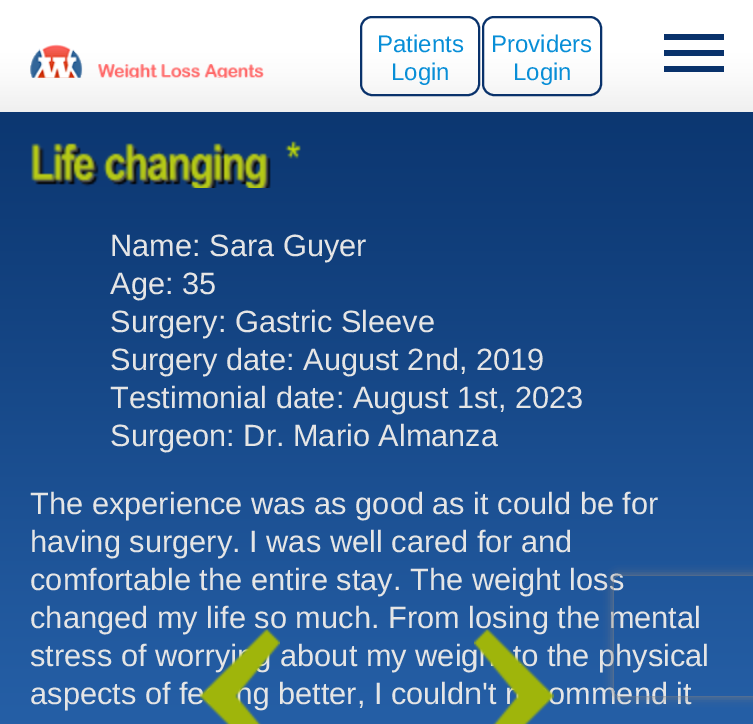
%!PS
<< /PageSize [753 724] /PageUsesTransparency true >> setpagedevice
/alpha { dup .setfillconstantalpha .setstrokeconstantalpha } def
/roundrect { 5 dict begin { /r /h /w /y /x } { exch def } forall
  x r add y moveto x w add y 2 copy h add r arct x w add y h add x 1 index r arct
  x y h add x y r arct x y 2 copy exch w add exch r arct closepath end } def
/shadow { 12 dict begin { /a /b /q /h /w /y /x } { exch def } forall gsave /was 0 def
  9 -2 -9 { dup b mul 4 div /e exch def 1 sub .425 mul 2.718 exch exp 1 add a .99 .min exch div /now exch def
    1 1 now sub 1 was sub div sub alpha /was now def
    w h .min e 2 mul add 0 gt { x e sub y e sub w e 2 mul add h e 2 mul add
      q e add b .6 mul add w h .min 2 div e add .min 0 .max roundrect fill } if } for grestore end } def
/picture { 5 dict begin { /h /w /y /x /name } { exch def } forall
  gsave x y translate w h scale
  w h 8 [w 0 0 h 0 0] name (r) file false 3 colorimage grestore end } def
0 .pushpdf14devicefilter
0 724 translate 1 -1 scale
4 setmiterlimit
1 setgray
0 0 753 724 rectfill
(img1.rgb) 0 0 753 112 picture
(img2.rgb) 30 44 234 34 picture
0.035 0.196 0.42 setrgbcolor
664 34 60 6 rectfill
664 50 60 6 rectfill
664 66 60 6 rectfill
2 setlinewidth
361 17 118 78 11 roundrect stroke
/LiberationSans-Regular [24 0 0 -24 0 0] selectfont
0.031 0.557 0.843 setrgbcolor
377 52 moveto (Patients) show
391 80 moveto (Login) show
0.035 0.196 0.42 setrgbcolor
483 17 118 78 11 roundrect stroke
0.031 0.557 0.843 setrgbcolor
491 52 moveto (Providers) show
513 80 moveto (Login) show
(img3.rgb) 0 112 753 612 picture
(img4.rgb) 31 143 68 44 picture
(img5.rgb) 103 143 168 45 picture
(img6.rgb) 285 141 16 18 picture
/LiberationSans-Regular [30.75 0 0 -30.75 0 0] selectfont
0.898 setgray
110 256 moveto (Name: Sara Guyer) show
110 294 moveto (Age: 35) show
110 332 moveto (Surgery: Gastric Sleeve) show
110 370 moveto (Surgery date: August 2nd, 2019) show
110 408 moveto (Testimonial date: August 1st, 2023) show
110 446 moveto (Surgeon: Dr. Mario Almanza) show
/LiberationSans-Regular [30.8 0 0 -30.8 0 0] selectfont
30 514 moveto (The experience was as good as it could be for) show
30 552 moveto (having surgery. I was well cared for and) show
30 590 moveto (comfortable the entire stay. The weight loss) show
30 628 moveto (changed my life so much. From losing the mental) show
30 666 moveto (stress of worry) show
280 666 moveto (about my weig) show
521 666 moveto (o the physical) show
30 704 moveto (aspects of fe) show
235 704 moveto (ng better, I couldn't r) show
548 704 moveto (ommend it) show
(img7.rgb) 200 628 80 96 picture
(img8.rgb) 474 628 80 96 picture
gsave
newpath 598 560 moveto 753 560 lineto 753 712 lineto 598 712 lineto closepath 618 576 moveto 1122 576 lineto 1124 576 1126 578 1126 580 curveto 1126 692 lineto 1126 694 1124 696 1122 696 curveto 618 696 lineto 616 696 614 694 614 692 curveto 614 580 lineto 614 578 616 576 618 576 curveto closepath eoclip newpath
0.502 setgray
614 576 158 120 4 5 1 shadow
grestore
.poppdf14devicefilter showpage
